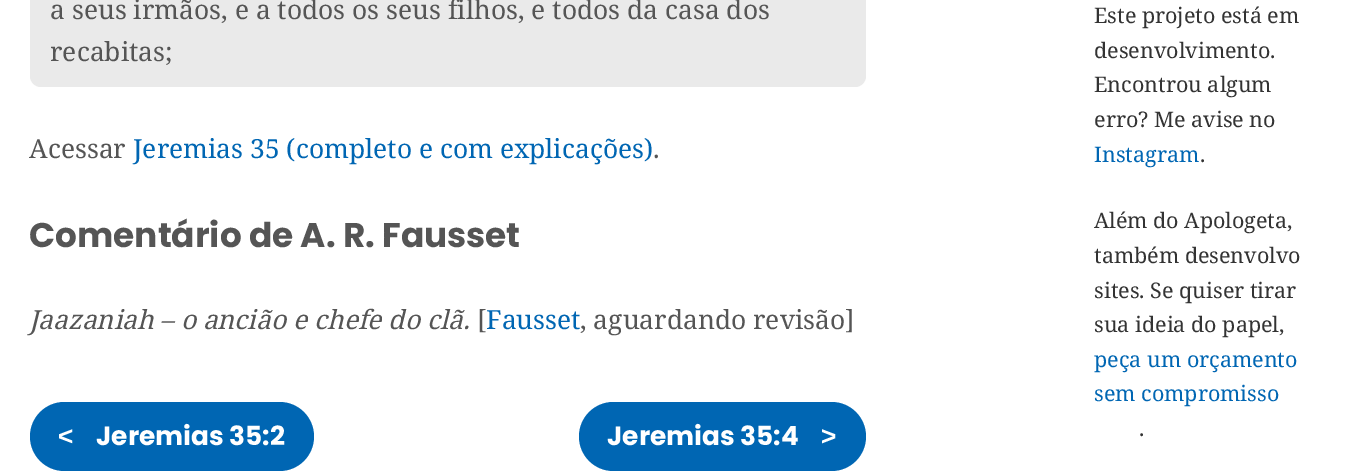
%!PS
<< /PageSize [1357 476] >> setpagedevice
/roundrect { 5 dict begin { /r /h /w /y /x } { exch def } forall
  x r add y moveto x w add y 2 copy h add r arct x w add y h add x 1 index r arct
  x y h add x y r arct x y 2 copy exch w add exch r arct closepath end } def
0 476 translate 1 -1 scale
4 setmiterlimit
1 setgray
0 0 1357 476 rectfill
0.918 setgray
30 -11 836 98 11 roundrect fill
/NotoSerif-Regular [26.4 0 0 -26.4 0 0] selectfont
0.333 setgray
50 19 moveto (a seus irmãos, e a todos os seus filhos, e todos da casa dos) show
50 61 moveto (recabitas;) show
29 158 moveto (Acessar) show
0 0.4 0.702 setrgbcolor
133 158 moveto (Jeremias 35 \(completo e com explicações\)) show
0.333 setgray
653 158 moveto (.) show
/Poppins-Bold [34.3 0 0 -34.3 0 0] selectfont
29 247 moveto (Comentário de A. R. Fausset) show
/NotoSerif-Italic [26.4 0 0 -26.4 0 0] selectfont
29 329 moveto (Jaazaniah – o ancião e chefe do clã.) show
/NotoSerif-Regular [26.4 0 0 -26.4 0 0] selectfont
477 329 moveto ([) show
0 0.4 0.702 setrgbcolor
486 329 moveto (Fausset) show
0.333 setgray
580 329 moveto (, aguardando revisão]) show
0 0.4 0.702 setrgbcolor
30 402 284 69 34.5 roundrect fill
/LiberationSans-Bold [26.4 0 0 -26.4 0 0] selectfont
1 setgray
58 445 moveto (<) show
/Poppins-Bold [26.4 0 0 -26.4 0 0] selectfont
96 445 moveto (Jeremias 35:2) show
0 0.4 0.702 setrgbcolor
579 402 287 69 34.5 roundrect fill
1 setgray
607 445 moveto (Jeremias 35:4) show
/LiberationSans-Bold [26.4 0 0 -26.4 0 0] selectfont
821 445 moveto (>) show
/NotoSerif-Regular [21.5 0 0 -21.5 0 0] selectfont
0.2 setgray
1094 23 moveto (Este projeto está em) show
1094 58 moveto (desenvolvimento.) show
1094 92 moveto (Encontrou algum) show
1094 127 moveto (erro? Me avise no) show
0 0.4 0.702 setrgbcolor
1094 162 moveto (Instagram) show
0.2 setgray
1200 162 moveto (.) show
1094 228 moveto (Além do Apologeta,) show
1094 263 moveto (também desenvolvo) show
1094 298 moveto (sites. Se quiser tirar) show
1094 332 moveto (sua ideia do papel,) show
0 0.4 0.702 setrgbcolor
1094 367 moveto (peça um orçamento) show
1094 401 moveto (sem compromisso) show
0.2 setgray
1139 436 moveto (.) show
showpage
